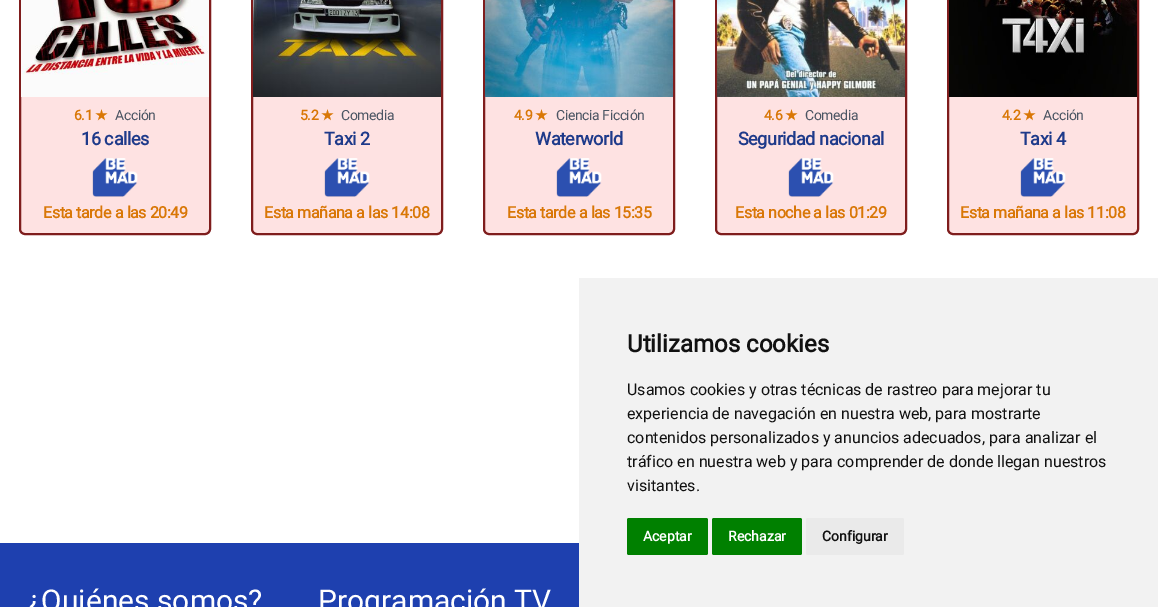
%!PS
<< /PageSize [1158 607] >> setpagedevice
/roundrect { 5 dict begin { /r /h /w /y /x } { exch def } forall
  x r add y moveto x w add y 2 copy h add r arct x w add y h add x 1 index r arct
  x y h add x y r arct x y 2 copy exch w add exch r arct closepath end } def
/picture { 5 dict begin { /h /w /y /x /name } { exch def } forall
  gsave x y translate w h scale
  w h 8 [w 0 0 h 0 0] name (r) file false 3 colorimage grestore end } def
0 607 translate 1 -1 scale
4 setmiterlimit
1 setgray
0 0 1158 607 rectfill
0.996 0.886 0.886 setrgbcolor
20 -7 190 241 5 roundrect gsave fill grestore
0.498 0.114 0.114 setrgbcolor
2 setlinewidth
stroke
(img1.rgb) 21 0 188 97 picture
/Roboto-Bold [14 0 0 -14 0 0] selectfont
0.851 0.467 0.024 setrgbcolor
74 120 moveto -0.4 0 (6.1) ashow
/DejaVuSans-Bold [14 0 0 -14 0 0] selectfont
95 120 moveto -0.4 0 (★) ashow
/Roboto-Regular [14 0 0 -14 0 0] selectfont
0.294 0.333 0.388 setrgbcolor
115 120 moveto -0.4 0 (Acción) ashow
/Roboto-Bold [18 0 0 -18 0 0] selectfont
0.118 0.227 0.541 setrgbcolor
81 145 moveto -0.4 0 (16 calles) ashow
(img2.rgb) 92 158 46 39 picture
/Roboto-Bold [16 0 0 -16 0 0] selectfont
0.851 0.467 0.024 setrgbcolor
43 218 moveto -0.4 0 (Esta tarde a las 20:49) ashow
0.996 0.886 0.886 setrgbcolor
252 -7 190 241 5 roundrect gsave fill grestore
0.498 0.114 0.114 setrgbcolor
stroke
(img3.rgb) 253 0 188 97 picture
/Roboto-Bold [14 0 0 -14 0 0] selectfont
0.851 0.467 0.024 setrgbcolor
300 120 moveto -0.4 0 (5.2) ashow
/DejaVuSans-Bold [14 0 0 -14 0 0] selectfont
321 120 moveto -0.4 0 (★) ashow
/Roboto-Regular [14 0 0 -14 0 0] selectfont
0.294 0.333 0.388 setrgbcolor
341 120 moveto -0.4 0 (Comedia) ashow
/Roboto-Bold [18 0 0 -18 0 0] selectfont
0.118 0.227 0.541 setrgbcolor
324 145 moveto -0.4 0 (Taxi 2) ashow
(img2.rgb) 324 158 46 39 picture
/Roboto-Bold [16 0 0 -16 0 0] selectfont
0.851 0.467 0.024 setrgbcolor
264 218 moveto -0.4 0 (Esta mañana a las 14:08) ashow
0.996 0.886 0.886 setrgbcolor
484 -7 190 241 5 roundrect gsave fill grestore
0.498 0.114 0.114 setrgbcolor
stroke
(img4.rgb) 485 0 188 97 picture
/Roboto-Bold [14 0 0 -14 0 0] selectfont
0.851 0.467 0.024 setrgbcolor
514 120 moveto -0.4 0 (4.9) ashow
/DejaVuSans-Bold [14 0 0 -14 0 0] selectfont
535 120 moveto -0.4 0 (★) ashow
/Roboto-Regular [14 0 0 -14 0 0] selectfont
0.294 0.333 0.388 setrgbcolor
556 120 moveto -0.4 0 (Ciencia Ficción) ashow
/Roboto-Bold [18 0 0 -18 0 0] selectfont
0.118 0.227 0.541 setrgbcolor
535 145 moveto -0.4 0 (Waterworld) ashow
(img5.rgb) 556 158 46 39 picture
/Roboto-Bold [16 0 0 -16 0 0] selectfont
0.851 0.467 0.024 setrgbcolor
507 218 moveto -0.4 0 (Esta tarde a las 15:35) ashow
0.996 0.886 0.886 setrgbcolor
716 -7 190 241 5 roundrect gsave fill grestore
0.498 0.114 0.114 setrgbcolor
stroke
(img6.rgb) 717 0 188 97 picture
/Roboto-Bold [14 0 0 -14 0 0] selectfont
0.851 0.467 0.024 setrgbcolor
764 120 moveto -0.4 0 (4.6) ashow
/DejaVuSans-Bold [14 0 0 -14 0 0] selectfont
785 120 moveto -0.4 0 (★) ashow
/Roboto-Regular [14 0 0 -14 0 0] selectfont
0.294 0.333 0.388 setrgbcolor
805 120 moveto -0.4 0 (Comedia) ashow
/Roboto-Bold [18 0 0 -18 0 0] selectfont
0.118 0.227 0.541 setrgbcolor
738 145 moveto -0.4 0 (Seguridad nacional) ashow
(img5.rgb) 788 158 46 39 picture
/Roboto-Bold [16 0 0 -16 0 0] selectfont
0.851 0.467 0.024 setrgbcolor
735 218 moveto -0.4 0 (Esta noche a las 01:29) ashow
0.996 0.886 0.886 setrgbcolor
948 -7 190 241 5 roundrect gsave fill grestore
0.498 0.114 0.114 setrgbcolor
stroke
(img7.rgb) 949 0 188 97 picture
/Roboto-Bold [14 0 0 -14 0 0] selectfont
0.851 0.467 0.024 setrgbcolor
1002 120 moveto -0.4 0 (4.2) ashow
/DejaVuSans-Bold [14 0 0 -14 0 0] selectfont
1023 120 moveto -0.4 0 (★) ashow
/Roboto-Regular [14 0 0 -14 0 0] selectfont
0.294 0.333 0.388 setrgbcolor
1043 120 moveto -0.4 0 (Acción) ashow
/Roboto-Bold [18 0 0 -18 0 0] selectfont
0.118 0.227 0.541 setrgbcolor
1020 145 moveto -0.4 0 (Taxi 4) ashow
(img5.rgb) 1020 158 46 39 picture
/Roboto-Bold [16 0 0 -16 0 0] selectfont
0.851 0.467 0.024 setrgbcolor
960 218 moveto -0.4 0 (Esta mañana a las 11:08) ashow
0.949 setgray
579 278 579 329 rectfill
/Roboto-Bold [24 0 0 -24 0 0] selectfont
0.067 setgray
627 352 moveto (Utilizamos cookies) show
/Roboto-Regular [16 0 0 -16 0 0] selectfont
627 395 moveto (Usamos cookies y otras técnicas de rastreo para mejorar tu) show
627 419 moveto (experiencia de navegación en nuestra web, para mostrarte) show
627 443 moveto (contenidos personalizados y anuncios adecuados, para analizar el) show
627 467 moveto (tráfico en nuestra web y para comprender de donde llegan nuestros) show
627 491 moveto (visitantes.) show
0 0.502 0 setrgbcolor
627 518 81 37 2 roundrect fill
/Roboto-Bold [14 0 0 -14 0 0] selectfont
1 setgray
643 541 moveto (Aceptar) show
0 0.502 0 setrgbcolor
712 518 90 37 2 roundrect fill
1 setgray
728 541 moveto (Rechazar) show
0.918 setgray
806 518 98 37 2 roundrect fill
0.067 setgray
822 541 moveto (Configurar) show
0.118 0.251 0.686 setrgbcolor
0 543 579 64 rectfill
/Roboto-Regular [30 0 0 -30 0 0] selectfont
1 setgray
27 611 moveto (¿Quiénes somos?) show
318 611 moveto (Programación TV) show
showpage
